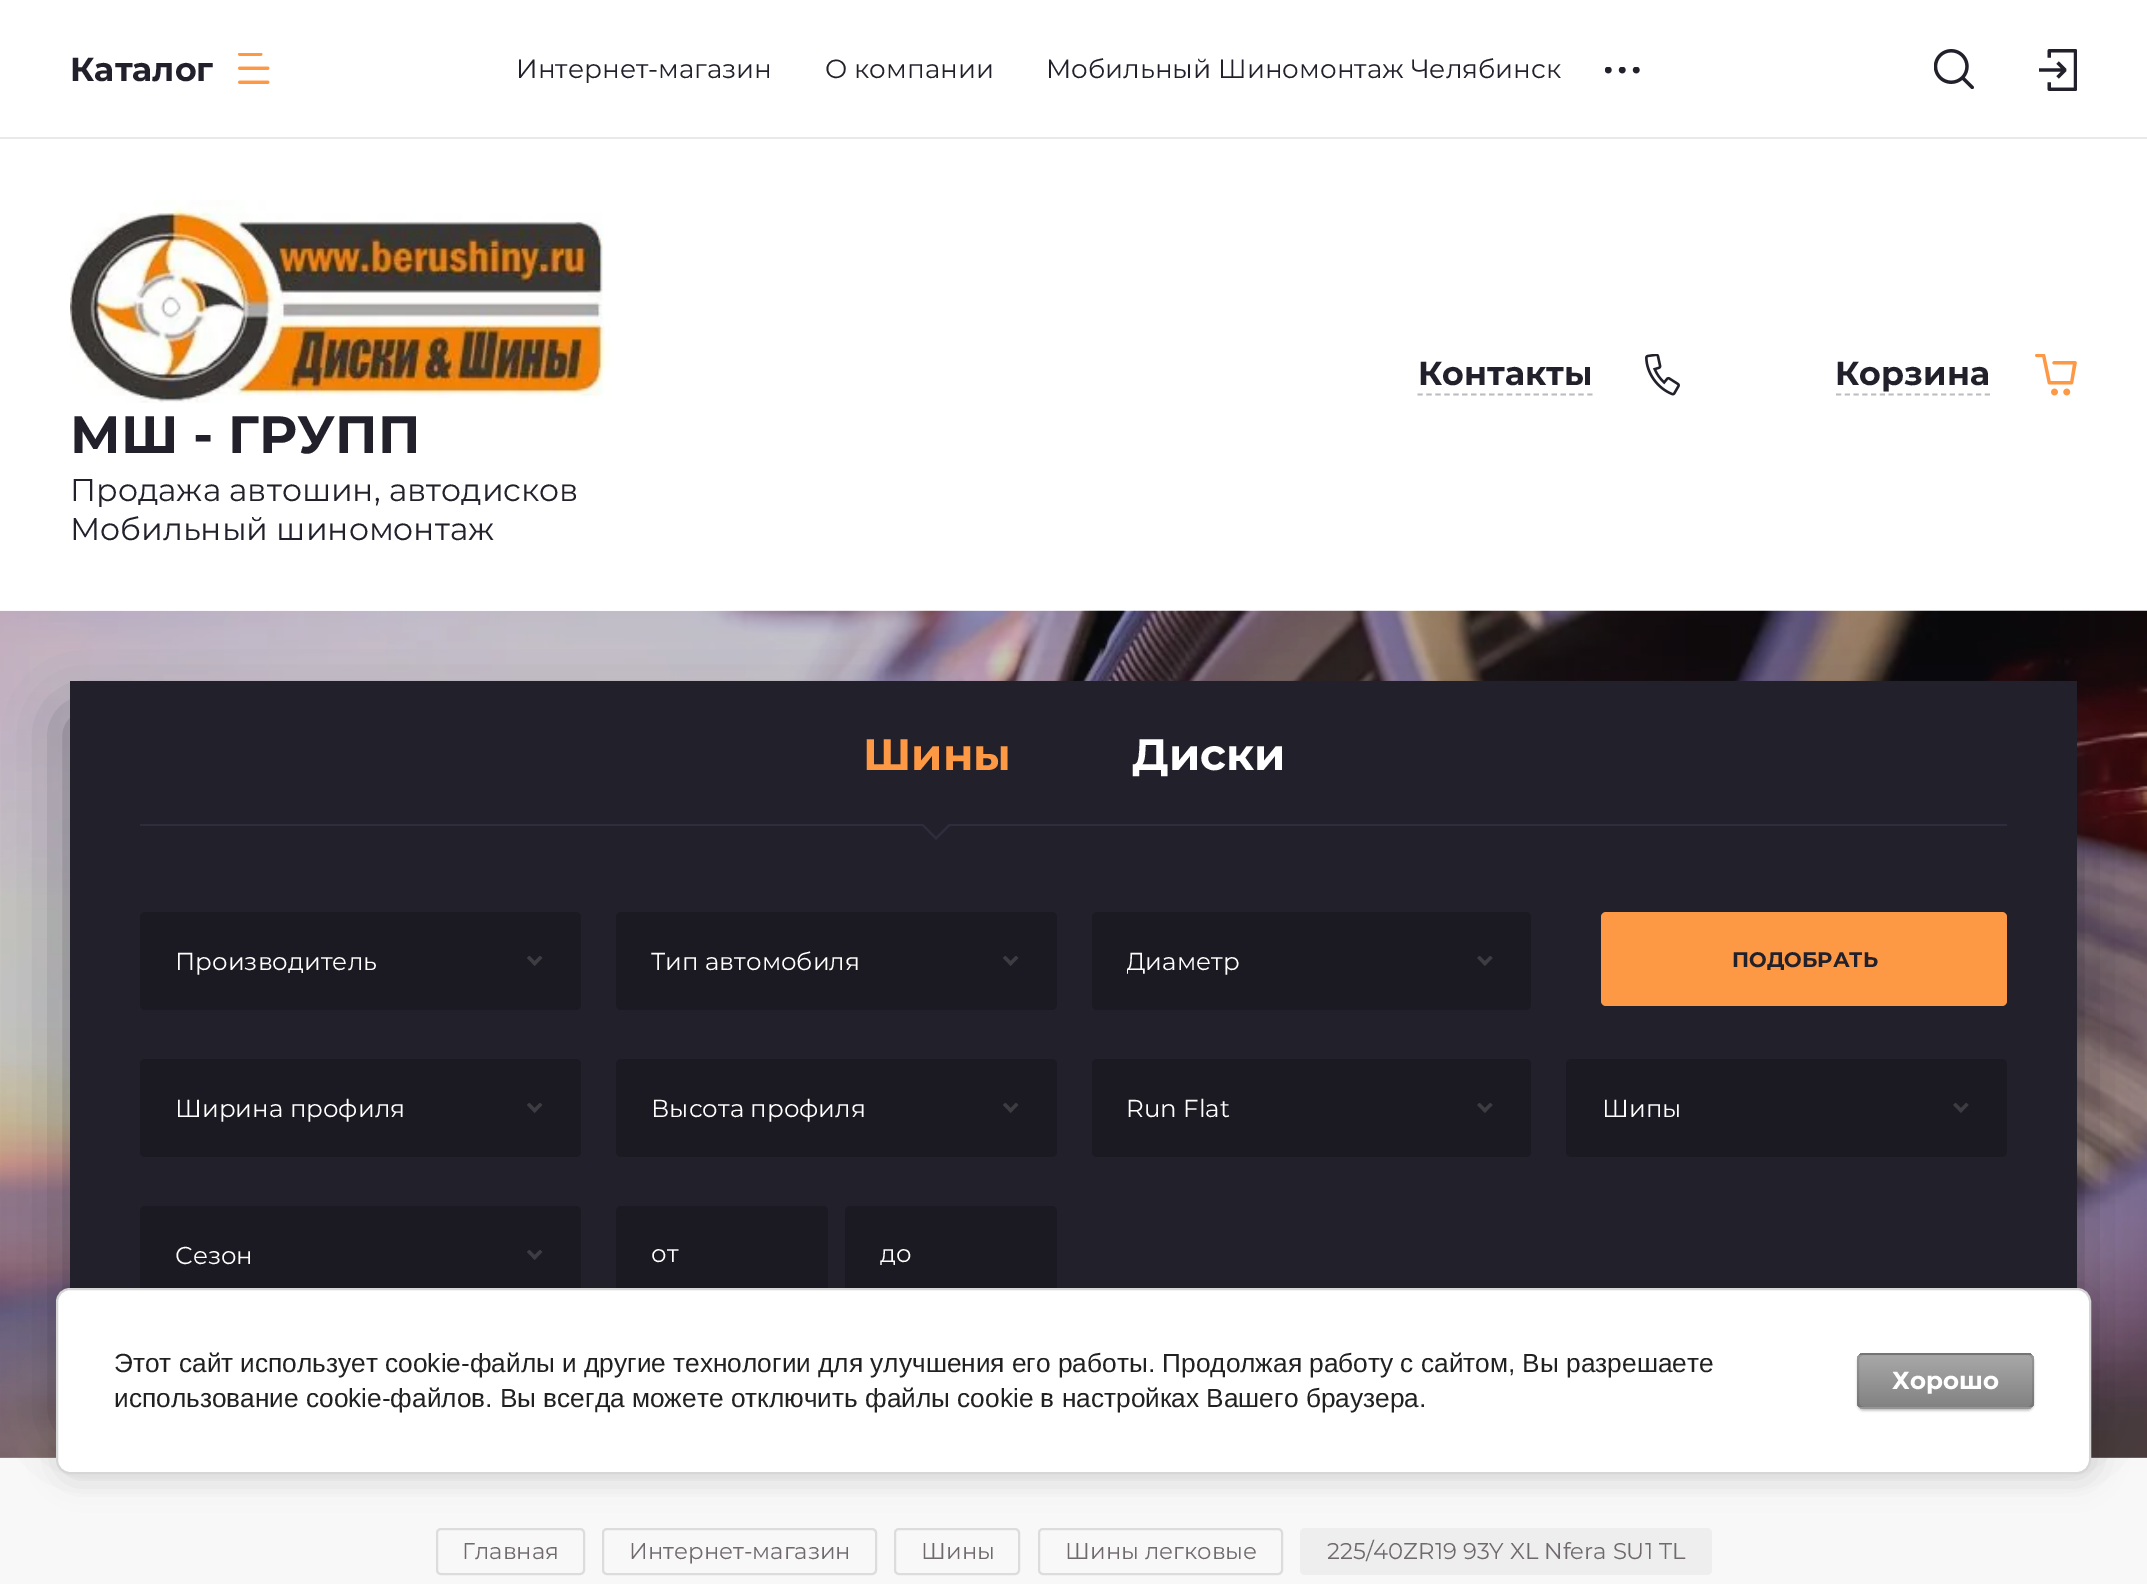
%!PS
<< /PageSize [2147 1584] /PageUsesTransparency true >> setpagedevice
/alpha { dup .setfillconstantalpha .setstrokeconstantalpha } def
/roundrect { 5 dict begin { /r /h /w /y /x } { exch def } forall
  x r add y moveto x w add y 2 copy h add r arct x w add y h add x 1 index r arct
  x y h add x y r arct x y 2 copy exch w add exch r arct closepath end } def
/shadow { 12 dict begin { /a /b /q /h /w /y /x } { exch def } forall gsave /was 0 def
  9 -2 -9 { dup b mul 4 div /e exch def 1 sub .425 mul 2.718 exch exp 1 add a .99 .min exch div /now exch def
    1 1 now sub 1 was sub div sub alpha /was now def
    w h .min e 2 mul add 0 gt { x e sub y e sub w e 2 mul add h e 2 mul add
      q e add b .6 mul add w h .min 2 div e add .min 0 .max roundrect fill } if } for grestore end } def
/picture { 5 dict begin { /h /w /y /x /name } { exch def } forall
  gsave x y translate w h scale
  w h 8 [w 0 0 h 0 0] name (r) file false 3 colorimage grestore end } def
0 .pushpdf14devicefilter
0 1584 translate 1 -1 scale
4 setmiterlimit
1 setgray
0 0 2147 1584 rectfill
0.914 0.914 0.918 setrgbcolor
0 137 2147 2 rectfill
/Montserrat-Bold [33.25 0 0 -33.25 0 0] selectfont
0.133 0.125 0.165 setrgbcolor
70 81 moveto (Каталог) show
(img1.rgb) 238 53 32 31 picture
/Montserrat-Regular [26.25 0 0 -26.25 0 0] selectfont
516 78 moveto (Интернет-магазин) show
825 78 moveto (О компании) show
1046 78 moveto (Мобильный Шиномонтаж Челябинск) show
(img2.rgb) 1605 67 35 7 picture
(img3.rgb) 1934 49 40 40 picture
(img4.rgb) 2039 49 38 42 picture
/Montserrat-Bold [33.25 0 0 -33.25 0 0] selectfont
1418 385 moveto (Контакты) show
0.737 0.737 0.749 setrgbcolor
1.8 setlinewidth
[5.25 3.69] 0 setdash
newpath 1417.5 394.5 moveto 1592.5 394.5 lineto stroke
(img5.rgb) 1645 354 35 42 picture
0.133 0.125 0.165 setrgbcolor
1835 385 moveto (Корзина) show
0.741 0.737 0.749 setrgbcolor
[5.25 3.5] 0 setdash
newpath 1836 394.5 moveto 1990 394.5 lineto stroke
(img6.rgb) 2035 354 42 42 picture
(img7.rgb) 70 200 541 203 picture
/Montserrat-Bold [52.5 0 0 -52.5 0 0] selectfont
0.133 0.125 0.165 setrgbcolor
70 453 moveto (МШ - ГРУПП) show
/Montserrat-Regular [31.5 0 0 -31.5 0 0] selectfont
70 501 moveto (Продажа автошин, автодисков) show
70 540 moveto (Мобильный шиномонтаж) show
0.973 setgray
0 1457 2147 127 rectfill
(img8.rgb) 0 610 2147 848 picture
0.133 0.125 0.165 setrgbcolor
70 718 2007 707 0 30.5 0.51 shadow
70 681 2007 607 rectfill
0.184 0.173 0.243 setrgbcolor
140 824 1867 2 rectfill
/Montserrat-Bold [44 0 0 -44 0 0] selectfont
0.992 0.596 0.267 setrgbcolor
863 770 moveto (Шины) show
0.184 0.173 0.243 setrgbcolor
newpath 920.5 824 moveto 952 824 lineto 936 840 lineto closepath fill
0.133 0.125 0.165 setrgbcolor
newpath 922 822.5 moveto 950 822.5 lineto 936 836.5 lineto closepath fill
1 setgray
1132 770 moveto (Диски) show
0.106 0.102 0.133 setrgbcolor
616 912 441 98 5 roundrect fill
/Montserrat-Regular [24.5 0 0 -24.5 0 0] selectfont
1 setgray
651 970 moveto (Тип автомобиля) show
(img9.rgb) 1003 956 16 10 picture
0.106 0.102 0.133 setrgbcolor
1092 912 439 98 5 roundrect fill
gsave
1127 945 334 32 rectclip
1 setgray
1126 970 moveto (Диаметр) show
grestore
(img10.rgb) 1477 956 16 10 picture
0.992 0.596 0.267 setrgbcolor
1601 912 406 94 5 roundrect fill
/Montserrat-Bold [21 0 0 -21 0 0] selectfont
0.133 0.125 0.165 setrgbcolor
1732 967 moveto (ПОДОБРАТЬ) show
0.106 0.102 0.133 setrgbcolor
140 1059 441 98 5 roundrect fill
/Montserrat-Regular [24.5 0 0 -24.5 0 0] selectfont
1 setgray
175 1117 moveto (Ширина профиля) show
(img9.rgb) 527 1103 16 10 picture
0.106 0.102 0.133 setrgbcolor
616 1059 441 98 5 roundrect fill
1 setgray
651 1117 moveto (Высота профиля) show
(img9.rgb) 1003 1103 16 10 picture
0.106 0.102 0.133 setrgbcolor
1092 1059 439 98 5 roundrect fill
1 setgray
1126 1117 moveto (Run Flat) show
(img10.rgb) 1477 1103 16 10 picture
0.106 0.102 0.133 setrgbcolor
1566 1059 441 98 5 roundrect fill
1 setgray
1602 1117 moveto (Шипы) show
(img10.rgb) 1953 1103 16 10 picture
0.106 0.102 0.133 setrgbcolor
140 1206 441 98 5 roundrect fill
1 setgray
175 1264 moveto (Сезон) show
(img9.rgb) 527 1250 16 10 picture
0.106 0.102 0.133 setrgbcolor
140 912 441 98 5 roundrect fill
1 setgray
175 970 moveto (Производитель) show
(img9.rgb) 527 956 16 10 picture
0.106 0.102 0.133 setrgbcolor
616 1206 212 94 5 roundrect fill
1 setgray
651 1262 moveto (от) show
0.106 0.102 0.133 setrgbcolor
845 1206 212 94 5 roundrect fill
gsave
880 1237 142 32 rectclip
1 setgray
880 1262 moveto (до) show
grestore
0.863 setgray
2 setlinewidth
[] 0 setdash
437 1529 147 45 4 roundrect stroke
/Montserrat-Regular [22.75 0 0 -22.75 0 0] selectfont
0.439 0.416 0.431 setrgbcolor
462 1559 moveto (Главная) show
0.863 setgray
603 1529 273 45 4 roundrect stroke
0.439 0.416 0.431 setrgbcolor
629 1559 moveto (Интернет-магазин) show
0.863 setgray
895 1529 124 45 4 roundrect stroke
0.439 0.416 0.431 setrgbcolor
921 1559 moveto (Шины) show
0.863 setgray
1039 1529 243 45 4 roundrect stroke
0.439 0.416 0.431 setrgbcolor
1065 1559 moveto (Шины легковые) show
0.933 setgray
1300 1528 412 47 5 roundrect fill
0.439 0.416 0.431 setrgbcolor
1327 1559 moveto (225/40ZR19 93Y XL Nfera SU1 TL) show
0 setgray
60 1292 2035 185 14 16 0.14 shadow
1 setgray
57 1289 2033 184 13 roundrect gsave fill grestore
0.839 setgray
stroke
/LiberationSans-Regular [26.25 0 0 -26.25 0 0] selectfont
0.129 setgray
114 1372 moveto (Этот сайт использует cookie-файлы и другие технологии для улучшения его работы. Продолжая работу с сайтом, Вы разрешаете) show
114 1407 moveto (использование cookie-файлов. Вы всегда можете отключить файлы cookie в настройках Вашего браузера.) show
0 setgray
1857 1355 177 56 7 1 0.2 shadow
gsave
1857 1353 177 56 7 roundrect clip newpath
gsave newpath 1857 1353 moveto 2034 1353 lineto 2034 1355 lineto 1857 1355 lineto closepath clip newpath
<< /ShadingType 2 /ColorSpace /DeviceRGB /Coords [1945 1302 1945 1355] /Extend [true true] /Function << /FunctionType 2 /Domain [0 1] /C0 [0.659 0.659 0.659] /C1 [0.51 0.51 0.51] /N 1 >> >> shfill grestore
gsave newpath 1857 1355 moveto 2034 1355 lineto 2034 1407 lineto 1857 1407 lineto closepath clip newpath
<< /ShadingType 2 /ColorSpace /DeviceRGB /Coords [1945 1355 1945 1407] /Extend [true true] /Function << /FunctionType 2 /Domain [0 1] /C0 [0.659 0.659 0.659] /C1 [0.51 0.51 0.51] /N 1 >> >> shfill grestore
gsave newpath 1857 1407 moveto 2034 1407 lineto 2034 1409 lineto 1857 1409 lineto closepath clip newpath
<< /ShadingType 2 /ColorSpace /DeviceRGB /Coords [1945 1407 1945 1460] /Extend [true true] /Function << /FunctionType 2 /Domain [0 1] /C0 [0.659 0.659 0.659] /C1 [0.51 0.51 0.51] /N 1 >> >> shfill grestore
grestore
0.1 alpha
1858 1354 175 54 6 roundrect stroke
/Montserrat-Bold [24.5 0 0 -24.5 0 0] selectfont
1 alpha
1 setgray
1892 1389 moveto (Хорошо) show
.poppdf14devicefilter showpage
